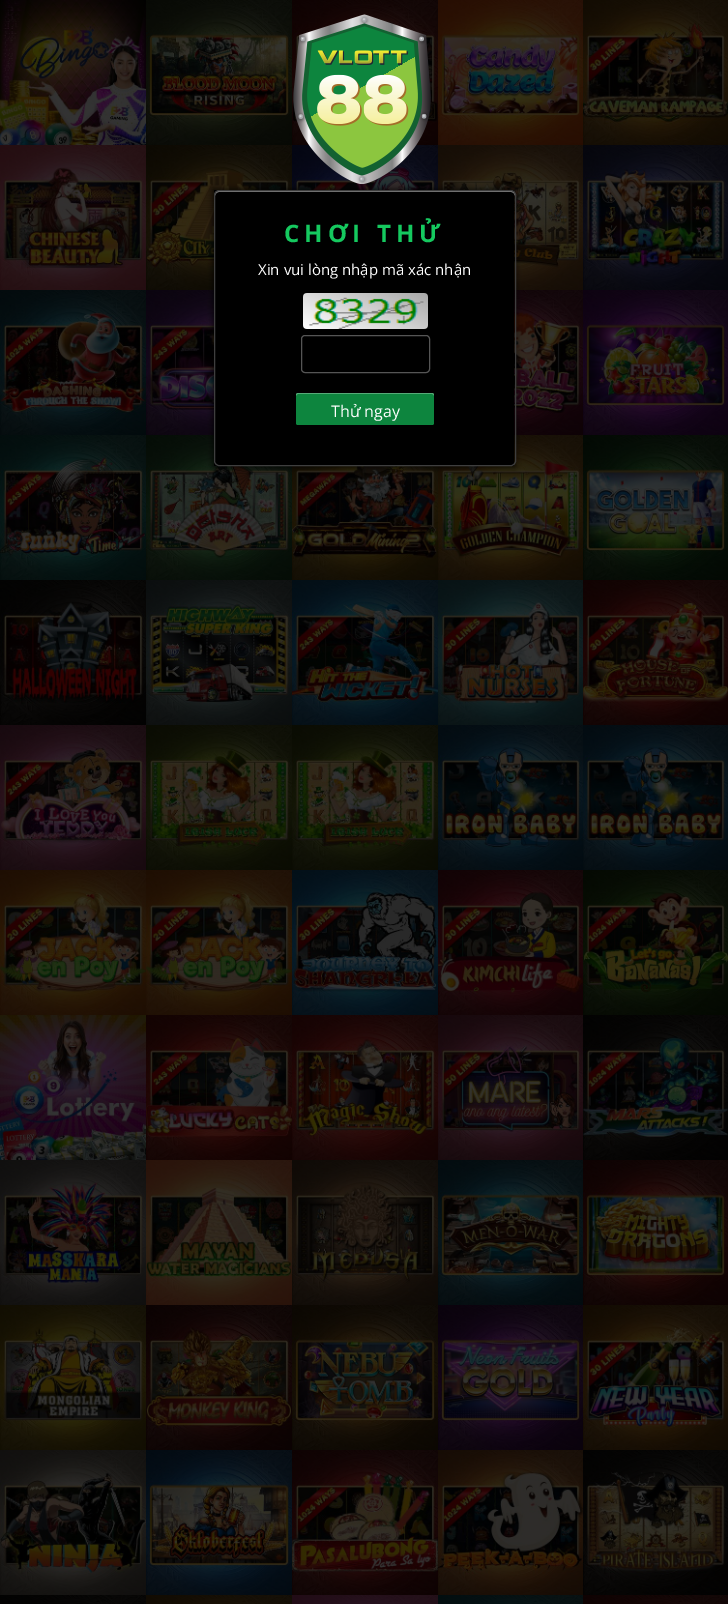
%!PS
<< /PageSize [728 1604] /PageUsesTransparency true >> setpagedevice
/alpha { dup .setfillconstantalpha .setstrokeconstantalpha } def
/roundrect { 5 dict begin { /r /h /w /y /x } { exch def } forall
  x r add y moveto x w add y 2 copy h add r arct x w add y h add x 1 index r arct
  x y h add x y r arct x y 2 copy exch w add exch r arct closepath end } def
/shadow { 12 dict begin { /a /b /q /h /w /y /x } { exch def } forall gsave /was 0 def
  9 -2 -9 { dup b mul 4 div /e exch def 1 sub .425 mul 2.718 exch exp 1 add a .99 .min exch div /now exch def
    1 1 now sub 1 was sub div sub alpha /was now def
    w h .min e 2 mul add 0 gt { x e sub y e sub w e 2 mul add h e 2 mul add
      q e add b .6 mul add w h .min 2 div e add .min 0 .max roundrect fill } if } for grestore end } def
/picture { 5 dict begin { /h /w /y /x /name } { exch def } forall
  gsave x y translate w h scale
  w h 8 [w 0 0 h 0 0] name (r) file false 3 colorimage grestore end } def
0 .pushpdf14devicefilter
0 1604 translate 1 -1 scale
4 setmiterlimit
1 setgray
0 0 728 1604 rectfill
(img1.rgb) 0 0 146 145 picture
(img2.rgb) 146 0 146 145 picture
(img3.rgb) 292 0 146 145 picture
(img4.rgb) 438 0 145 145 picture
(img5.rgb) 583 0 145 145 picture
(img6.rgb) 0 145 146 145 picture
(img7.rgb) 146 145 146 145 picture
(img8.rgb) 292 145 146 45 picture
(img9.rgb) 438 145 145 145 picture
(img10.rgb) 583 145 145 145 picture
(img11.rgb) 0 290 146 145 picture
(img12.rgb) 146 290 68 145 picture
(img13.rgb) 514 290 69 145 picture
(img14.rgb) 583 290 145 145 picture
(img15.rgb) 0 435 146 145 picture
(img16.rgb) 146 435 146 145 picture
(img17.rgb) 292 466 146 114 picture
(img18.rgb) 438 435 145 145 picture
(img19.rgb) 583 435 145 145 picture
(img20.rgb) 0 580 146 145 picture
(img21.rgb) 146 580 146 145 picture
(img22.rgb) 292 580 146 145 picture
(img23.rgb) 438 580 145 145 picture
(img24.rgb) 583 580 145 145 picture
(img25.rgb) 0 725 146 145 picture
(img26.rgb) 146 725 146 145 picture
(img26.rgb) 292 725 146 145 picture
(img27.rgb) 438 725 145 145 picture
(img28.rgb) 583 725 145 145 picture
(img29.rgb) 0 870 146 145 picture
(img30.rgb) 146 870 146 145 picture
(img31.rgb) 292 870 146 145 picture
(img32.rgb) 438 870 145 145 picture
(img33.rgb) 583 870 145 145 picture
(img34.rgb) 0 1015 146 145 picture
(img35.rgb) 146 1015 146 145 picture
(img36.rgb) 292 1015 146 145 picture
(img37.rgb) 438 1015 145 145 picture
(img38.rgb) 583 1015 145 145 picture
(img39.rgb) 0 1160 146 145 picture
(img40.rgb) 146 1160 146 145 picture
(img41.rgb) 292 1160 146 145 picture
(img42.rgb) 438 1160 145 145 picture
(img43.rgb) 583 1160 145 145 picture
(img44.rgb) 0 1305 146 145 picture
(img45.rgb) 146 1305 146 145 picture
(img46.rgb) 292 1305 146 145 picture
(img47.rgb) 438 1305 145 145 picture
(img48.rgb) 583 1305 145 145 picture
(img49.rgb) 0 1450 146 145 picture
(img50.rgb) 146 1450 146 145 picture
(img51.rgb) 292 1450 146 145 picture
(img52.rgb) 438 1450 145 145 picture
(img53.rgb) 583 1450 145 145 picture
(img54.rgb) 0 1595 146 9 picture
(img55.rgb) 146 1595 146 9 picture
(img56.rgb) 292 1595 146 9 picture
(img57.rgb) 438 1595 145 9 picture
(img58.rgb) 583 1595 145 9 picture
0 setgray
213 189 302 278 0 3 0.75 shadow
(img59.rgb) 293 14 138 171 picture
214 190 300 276 rectfill
0.5 alpha
1 setgray
newpath 219 192 moveto 511 192 lineto 513 192 515 194 515 196 curveto 515 193 514 191 511 191 curveto 219 191 lineto 216 191 215 193 215 196 curveto 215 194 217 192 219 192 curveto closepath fill
1 alpha
0.243 setgray
214.5 190.5 301 275 4.5 roundrect stroke
/OpenSans-Bold [24 0 0 -24 0 0] selectfont
0.082 0.788 0.373 setrgbcolor
284 242 moveto 5 0 (CHƠI THỬ) ashow
/OpenSans-Regular [15 0 0 -15 0 0] selectfont
1 setgray
258 275 moveto (Xin vui lòng nhập mã xác nhận) show
(img60.rgb) 303 293 125 36 picture
0.333 setgray
301.5 335.5 128 37 3.5 roundrect stroke
0.051 0.522 0.243 setrgbcolor
296 393 138 32 2 roundrect fill
0.3 alpha
1 setgray
newpath 298 394 moveto 432 394 lineto 433 394 434 395 434 396 curveto 434 395 434 393 432 393 curveto 298 393 lineto 296 393 296 395 296 396 curveto 296 395 297 394 298 394 curveto closepath fill
/OpenSans-Regular [16 0 0 -16 0 0] selectfont
1 alpha
331 417 moveto (Thử ngay) show
.poppdf14devicefilter showpage
